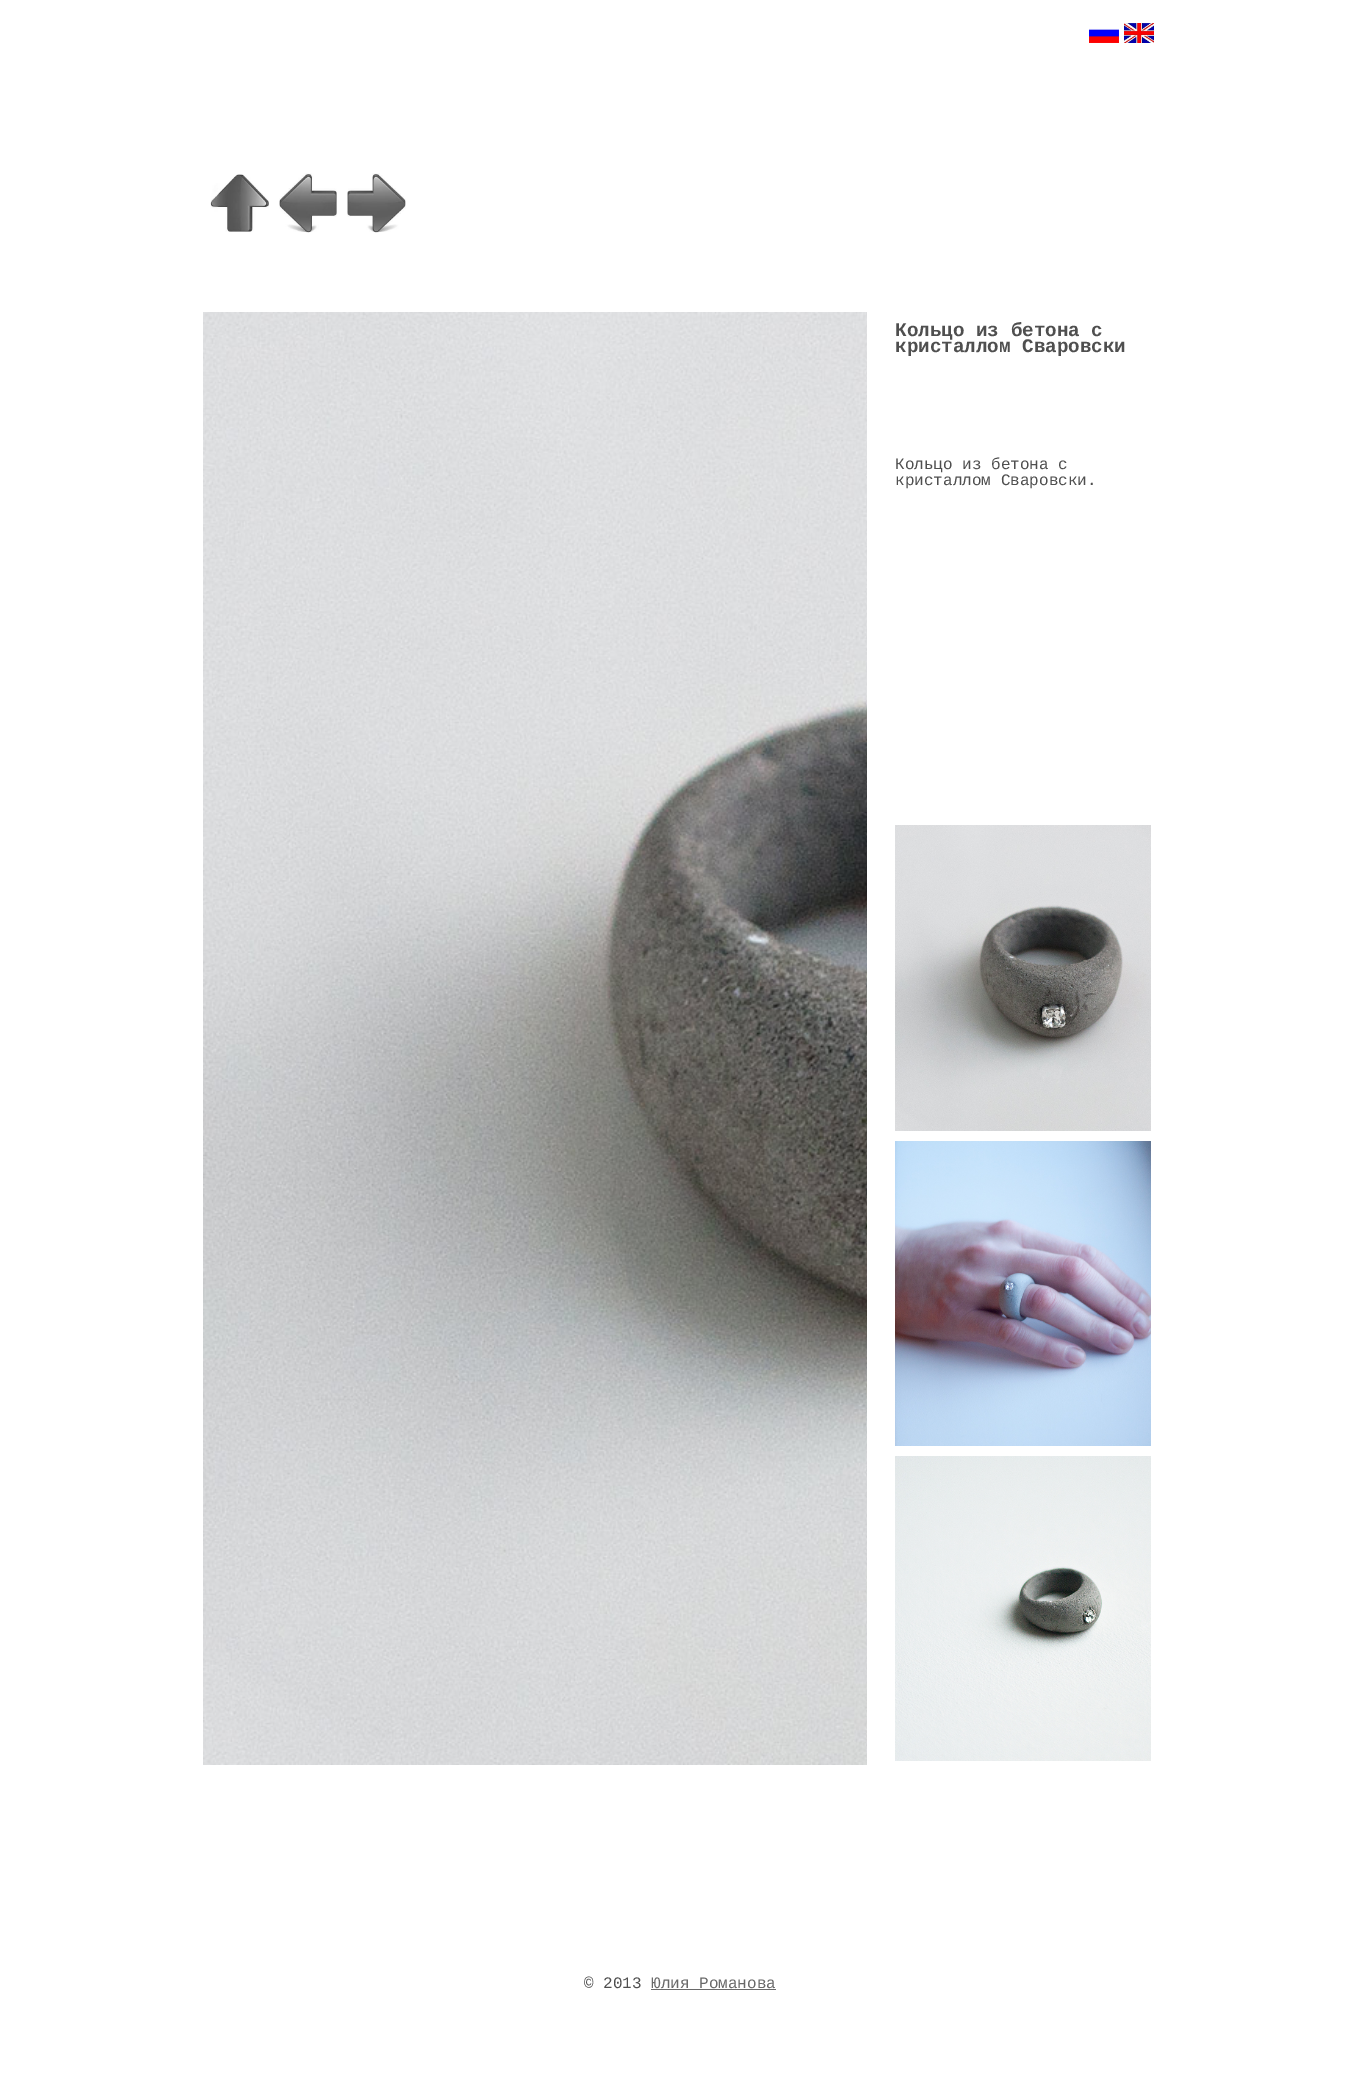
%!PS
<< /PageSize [1354 2077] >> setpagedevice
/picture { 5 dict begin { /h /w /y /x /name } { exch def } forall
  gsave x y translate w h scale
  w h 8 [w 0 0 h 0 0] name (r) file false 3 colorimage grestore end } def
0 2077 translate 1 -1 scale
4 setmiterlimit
1 setgray
0 0 1354 2077 rectfill
(img1.rgb) 1089 28 30 15 picture
(img2.rgb) 1124 23 30 20 picture
(img3.rgb) 210 174 59 58 picture
(img4.rgb) 279 173 58 60 picture
(img5.rgb) 347 173 59 60 picture
(img6.rgb) 203 312 664 1453 picture
/LiberationMono-Bold [19.25 0 0 -19.25 0 0] selectfont
0.31 setgray
895 336 moveto (Кольцо из бетона с) show
895 352 moveto (кристаллом Сваровски) show
/LiberationMono-Regular [16 0 0 -16 0 0] selectfont
895 469 moveto (Кольцо из бетона с) show
895 485 moveto (кристаллом Сваровски.) show
(img7.rgb) 895 825 256 306 picture
(img8.rgb) 895 1141 256 305 picture
(img9.rgb) 895 1456 256 305 picture
584 1988 moveto (© 2013) show
0.412 setgray
651 1988 moveto (Юлия Романова) show
651 1989 125 1 rectfill
showpage
